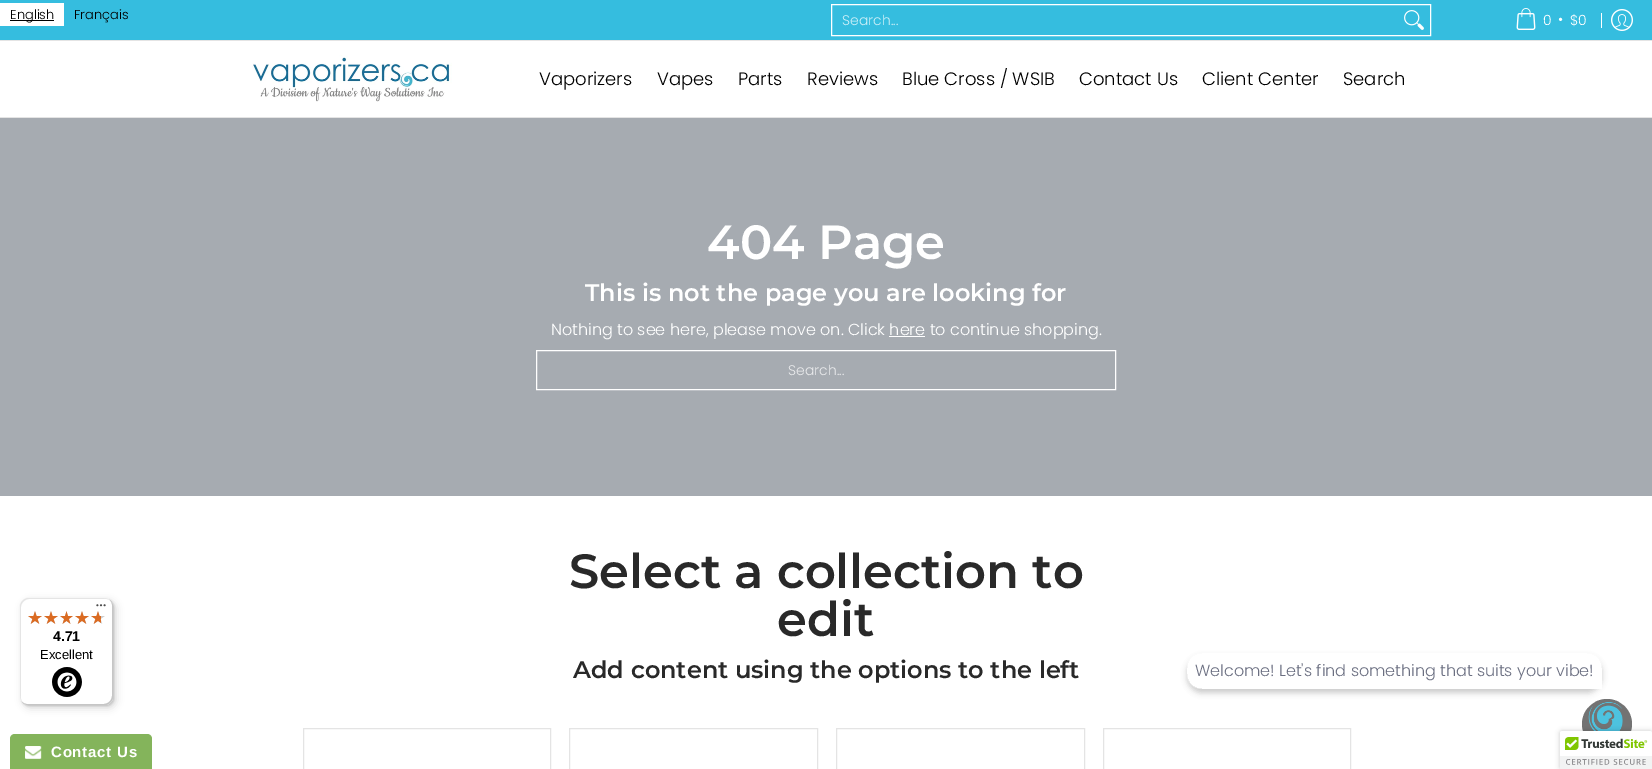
%!PS
<< /PageSize [1652 769] /PageUsesTransparency true >> setpagedevice
/alpha { dup .setfillconstantalpha .setstrokeconstantalpha } def
/roundrect { 5 dict begin { /r /h /w /y /x } { exch def } forall
  x r add y moveto x w add y 2 copy h add r arct x w add y h add x 1 index r arct
  x y h add x y r arct x y 2 copy exch w add exch r arct closepath end } def
/shadow { 12 dict begin { /a /b /q /h /w /y /x } { exch def } forall gsave /was 0 def
  9 -2 -9 { dup b mul 4 div /e exch def 1 sub .425 mul 2.718 exch exp 1 add a .99 .min exch div /now exch def
    1 1 now sub 1 was sub div sub alpha /was now def
    w h .min e 2 mul add 0 gt { x e sub y e sub w e 2 mul add h e 2 mul add
      q e add b .6 mul add w h .min 2 div e add .min 0 .max roundrect fill } if } for grestore end } def
/picture { 5 dict begin { /h /w /y /x /name } { exch def } forall
  gsave x y translate w h scale
  w h 8 [w 0 0 h 0 0] name (r) file false 3 colorimage grestore end } def
0 .pushpdf14devicefilter
0 769 translate 1 -1 scale
4 setmiterlimit
1 setgray
0 0 1652 769 rectfill
0.208 0.741 0.875 setrgbcolor
0 0 1652 40 rectfill
0.894 setgray
0 40 1652 1 rectfill
1 setgray
0 3 64 23 rectfill
0 setgray
10 20 44 1 rectfill
/Poppins-Light [13 0 0 -13 0 0] selectfont
10 19 moveto (English) show
74 19 moveto (Français) show
1 setgray
831.5 4.5 599 31 rectstroke
/Poppins-Light [14 0 0 -14 0 0] selectfont
0.804 0.937 0.969 setrgbcolor
842 25 moveto (Search...) show
(img1.rgb) 1404 10 20 20 picture
(img2.rgb) 1516 8 20 22 picture
1 setgray
1543 25 moveto (0) show
1558 24 moveto (•) show
1570 25 moveto ($0) show
1601 13 1 15 rectfill
(img3.rgb) 1611 9 22 22 picture
0.894 setgray
0 117 1652 1 rectfill
(img4.rgb) 252 55 200 47 picture
/Poppins-Light [18 0 0 -18 0 0] selectfont
0 setgray
539 85 moveto (Vaporizers) show
657 85 moveto (Vapes) show
738 85 moveto (Parts) show
807 85 moveto (Reviews) show
902 85 moveto (Blue Cross / WSIB) show
1079 85 moveto (Contact Us) show
1202 85 moveto (Client Center) show
1343 85 moveto (Search) show
23 601 93 107 8 4 0.15 shadow
21 599 93 107 8 1 0.15 shadow
1 setgray
20 598 93 107 8 roundrect fill
0.898 setgray
newpath 29 599 moveto 106 599 lineto 108 599 110 600 112 602 curveto 110 600 108 598 105 598 curveto 28 598 lineto 24 598 20 602 20 606 curveto 20 697 lineto 20 700 22 702 24 704 curveto 22 702 21 700 21 698 curveto 21 607 lineto 21 603 25 599 29 599 curveto closepath fill
0.8 setgray
newpath 21 701 moveto 23 703 25 705 28 705 curveto 105 705 lineto 109 705 113 701 113 697 curveto 113 606 lineto 113 603 111 601 109 599 curveto 111 601 112 603 112 605 curveto 112 696 lineto 112 700 108 704 104 704 curveto 27 704 lineto 25 704 23 703 21 701 curveto closepath fill
0.2 alpha
0.196 setgray
newpath 22 702 moveto 23 704 26 705 28 705 curveto 105 705 lineto 109 705 113 701 113 697 curveto 113 606 lineto 113 604 112 601 110 600 curveto 111 601 112 603 112 605 curveto 112 696 lineto 112 701 109 704 104 704 curveto 27 704 lineto 25 704 23 703 22 702 curveto closepath fill
0.3 alpha
1 setgray
newpath 112 606 moveto 112 601 109 598 104 598 curveto 105 598 lineto 109 598 113 602 113 606 curveto 113 697 lineto 113 701 109 705 105 705 curveto 28 705 lineto 24 705 20 701 20 697 curveto 20 696 lineto 20 701 23 704 28 704 curveto 104 704 lineto 109 704 112 701 112 696 curveto closepath fill
1 alpha
(img5.rgb) 96 604 10 3 picture
(img6.rgb) 28 611 14 13 picture
(img6.rgb) 44 611 14 13 picture
(img7.rgb) 60 611 13 13 picture
(img6.rgb) 75 611 14 13 picture
(img6.rgb) 91 611 14 13 picture
(img8.rgb) 28 611 14 13 picture
(img8.rgb) 44 611 14 13 picture
(img9.rgb) 60 611 13 13 picture
(img8.rgb) 75 611 14 13 picture
(img10.rgb) 91 611 10 13 picture
/LiberationSans-Bold [14 0 0 -14 0 0] selectfont
0 setgray
53 641 moveto (4.71) show
/LiberationSans-Regular [13 0 0 -13 0 0] selectfont
40 659 moveto (Excellent) show
(img11.rgb) 52 667 30 30 picture
0.651 0.671 0.694 setrgbcolor
0 118 1652 378 rectfill
/Montserrat-SemiBold [48 0 0 -48 0 0] selectfont
1 setgray
707 259 moveto (404 Page) show
/Montserrat-SemiBold [24 0 0 -24 0 0] selectfont
585 301 moveto (This is not the page you are looking for) show
/Poppins-Light [16 0 0 -16 0 0] selectfont
551 335 moveto (Nothing to see here, please move on. Click here to continue shopping.) show
889 336 36 1 rectfill
536.5 350.5 579 39 rectstroke
/Poppins-Light [14 0 0 -14 0 0] selectfont
0.914 0.918 0.925 setrgbcolor
788 375 moveto (Search...) show
/Montserrat-SemiBold [48 0 0 -48 0 0] selectfont
0.161 setgray
569 588 moveto (Select a collection to) show
777 636 moveto (edit) show
/Montserrat-SemiBold [24 0 0 -24 0 0] selectfont
573 678 moveto (Add content using the options to the left) show
0.894 setgray
303.5 728.5 247 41 rectstroke
569.5 728.5 248 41 rectstroke
836.5 728.5 248 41 rectstroke
1103.5 728.5 247 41 rectstroke
0.451 setgray
newpath 1607 724 25 0 360 arc closepath fill
(img12.rgb) 1588 702 35 29 picture
gsave
newpath 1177 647 moveto 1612 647 lineto 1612 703 lineto 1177 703 lineto closepath 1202 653 moveto 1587 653 lineto 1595.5 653 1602 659.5 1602 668 curveto 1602 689 lineto 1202 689 lineto 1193.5 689 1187 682.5 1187 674 curveto 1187 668 lineto 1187 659.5 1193.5 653 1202 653 curveto closepath eoclip newpath
0 setgray
1187 657 415 36 15 3 0.2 shadow
grestore
0.56 alpha
1 setgray
newpath 1202 653 moveto 1587 653 lineto 1595.5 653 1602 659.5 1602 668 curveto 1602 689 lineto 1202 689 lineto 1193.5 689 1187 682.5 1187 674 curveto 1187 668 lineto 1187 659.5 1193.5 653 1202 653 curveto closepath fill
/Poppins-Light [16 0 0 -16 0 0] selectfont
1 alpha
0.42 0.435 0.506 setrgbcolor
1195 676 moveto (Welcome! Let's find something that suits your vibe!) show
0.518 0.706 0.357 setrgbcolor
newpath 15 734 moveto 147 734 lineto 150 734 152 736 152 739 curveto 152 769 lineto 10 769 lineto 10 739 lineto 10 736 12 734 15 734 curveto closepath fill
(img13.rgb) 25 746 17 13 picture
/LiberationSans-Bold [15 0 0 -15 0 0] selectfont
1 setgray
51 757 moveto 0.75 0 (Contact Us) ashow
0 setgray
1560 731 92 38 2 2.5 0.2 shadow
1 setgray
newpath 1562 731 moveto 1652 731 lineto 1652 769 lineto 1560 769 lineto 1560 733 lineto 1560 732 1561 731 1562 731 curveto closepath fill
(img14.rgb) 1560 731 92 38 picture
.poppdf14devicefilter showpage
